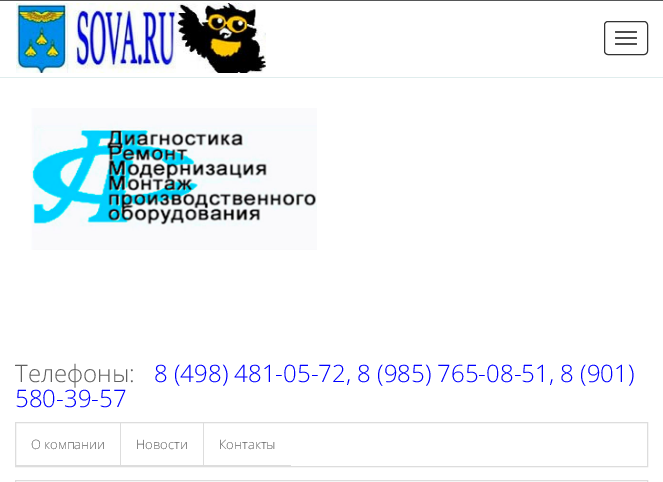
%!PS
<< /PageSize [663 482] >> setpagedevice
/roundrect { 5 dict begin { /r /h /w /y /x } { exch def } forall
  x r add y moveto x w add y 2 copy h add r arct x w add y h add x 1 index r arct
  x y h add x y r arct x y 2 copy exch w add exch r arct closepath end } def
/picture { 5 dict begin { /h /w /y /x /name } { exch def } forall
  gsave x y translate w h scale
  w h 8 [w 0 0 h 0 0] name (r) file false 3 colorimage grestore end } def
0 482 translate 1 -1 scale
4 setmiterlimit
1 setgray
0 0 663 482 rectfill
0.333 0.337 0.341 setrgbcolor
0 0 663 1 rectfill
0.878 0.929 0.929 setrgbcolor
0 77 663 1 rectfill
(img1.rgb) 16 3 250 70 picture
0.2 setgray
604.5 21.5 43 33 3.5 roundrect stroke
0.298 setgray
615 31 22 2 1 roundrect fill
615 37 22 2 1 roundrect fill
615 43 22 2 1 roundrect fill
(img2.rgb) 30 108 287 142 picture
/OpenSans-Light [24 0 0 -24 0 0] selectfont
0.38 setgray
15 382 moveto (Телефоны:) show
0 0 1 setrgbcolor
154 382 moveto (8 \(498\) 481-05-72, 8 \(985\) 765-08-51, 8 \(901\)) show
15 407 moveto (580-39-57) show
0.867 setgray
15.5 422.5 632 44 rectstroke
120 423 1 43 rectfill
16 465 105 1 rectfill
/OpenSans-Light [13 0 0 -13 0 0] selectfont
0.38 setgray
31 449 moveto (О компании) show
0.867 setgray
203 423 1 43 rectfill
121 465 170 1 rectfill
0.38 setgray
136 449 moveto (Новости) show
219 449 moveto (Контакты) show
0.867 setgray
15.5 480.5 632 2 rectstroke
showpage
